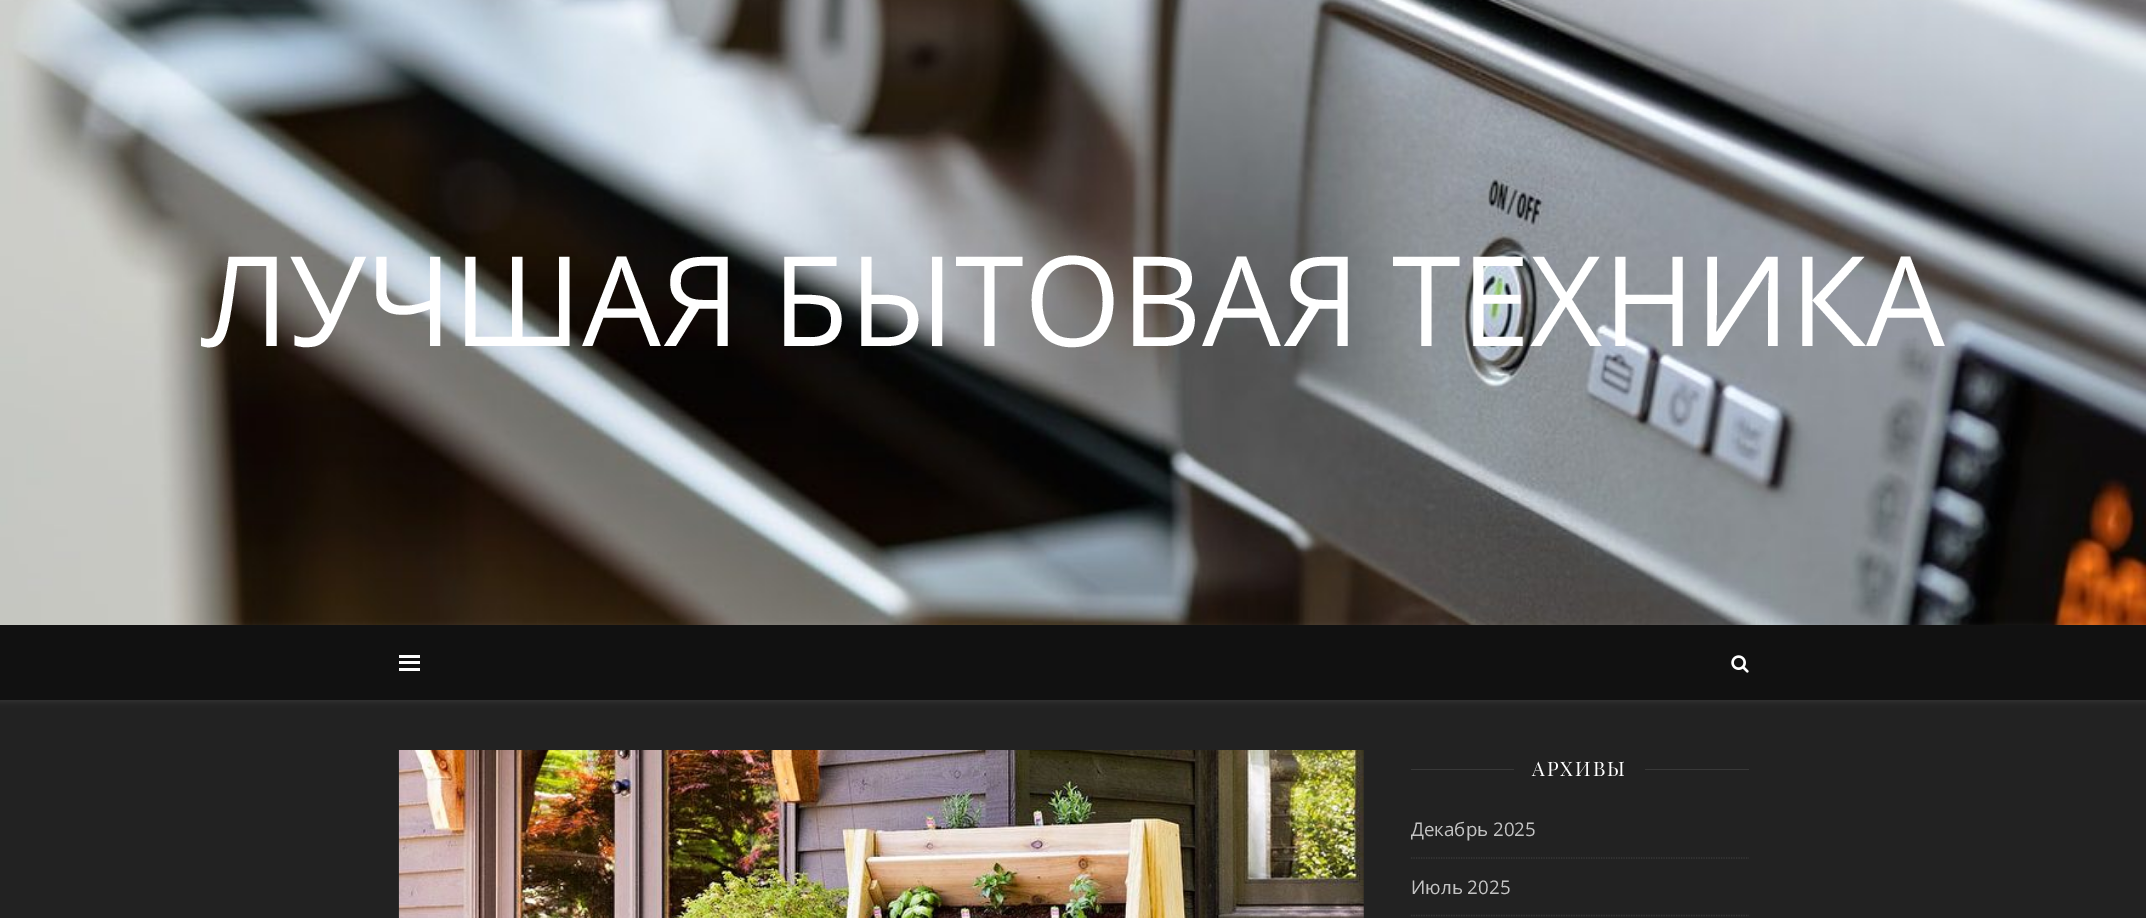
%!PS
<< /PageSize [2146 918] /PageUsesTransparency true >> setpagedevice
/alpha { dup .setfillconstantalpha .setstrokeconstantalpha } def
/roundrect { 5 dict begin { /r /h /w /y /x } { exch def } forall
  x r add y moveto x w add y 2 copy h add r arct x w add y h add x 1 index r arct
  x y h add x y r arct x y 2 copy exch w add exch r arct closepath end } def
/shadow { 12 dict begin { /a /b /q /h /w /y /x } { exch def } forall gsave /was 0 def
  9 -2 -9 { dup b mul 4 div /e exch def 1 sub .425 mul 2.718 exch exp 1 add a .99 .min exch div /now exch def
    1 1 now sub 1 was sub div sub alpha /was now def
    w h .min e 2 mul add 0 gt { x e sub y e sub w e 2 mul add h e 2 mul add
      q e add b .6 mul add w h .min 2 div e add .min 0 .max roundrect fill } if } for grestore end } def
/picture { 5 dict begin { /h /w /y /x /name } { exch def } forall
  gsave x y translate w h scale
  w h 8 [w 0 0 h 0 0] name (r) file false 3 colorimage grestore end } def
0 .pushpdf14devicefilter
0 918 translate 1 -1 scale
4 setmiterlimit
0.133 setgray
0 0 2146 918 rectfill
(img1.rgb) 0 0 2146 625 picture
/OpenSans-Regular [125 0 0 -125 0 0] selectfont
1 setgray
201 346 moveto (ЛУЧШАЯ БЫТОВАЯ ТЕХНИКА) show
0 626 2146 75 0 3 0.1 shadow
0.067 setgray
0 625 2146 75 rectfill
1 setgray
399 655 21 3 rectfill
399 661 21 3 rectfill
399 668 21 3 rectfill
(img2.rgb) 1731 655 18 18 picture
(img3.rgb) 398 750 966 168 picture
0.22 setgray
1411 769 103 1 rectfill
/PlayfairDisplay-Regular [20 0 0 -20 0 0] selectfont
1 setgray
1532 776 moveto 2 0 (АРХИВЫ) ashow
0.22 setgray
1645 769 104 1 rectfill
1.2 setlinewidth
[1.25 1.25] 0 setdash
newpath 1411 858 moveto 1749 858 lineto stroke
gsave
1411 801 124 57 rectclip
/OpenSans-Regular [18.75 0 0 -18.75 0 0] selectfont
0.769 setgray
1411 836 moveto (Декабрь 2025) show
grestore
newpath 1411 915.5 moveto 1749 915.5 lineto stroke
/OpenSans-Regular [18.75 0 0 -18.75 0 0] selectfont
0.769 setgray
1411 894 moveto (Июль 2025) show
.poppdf14devicefilter showpage
